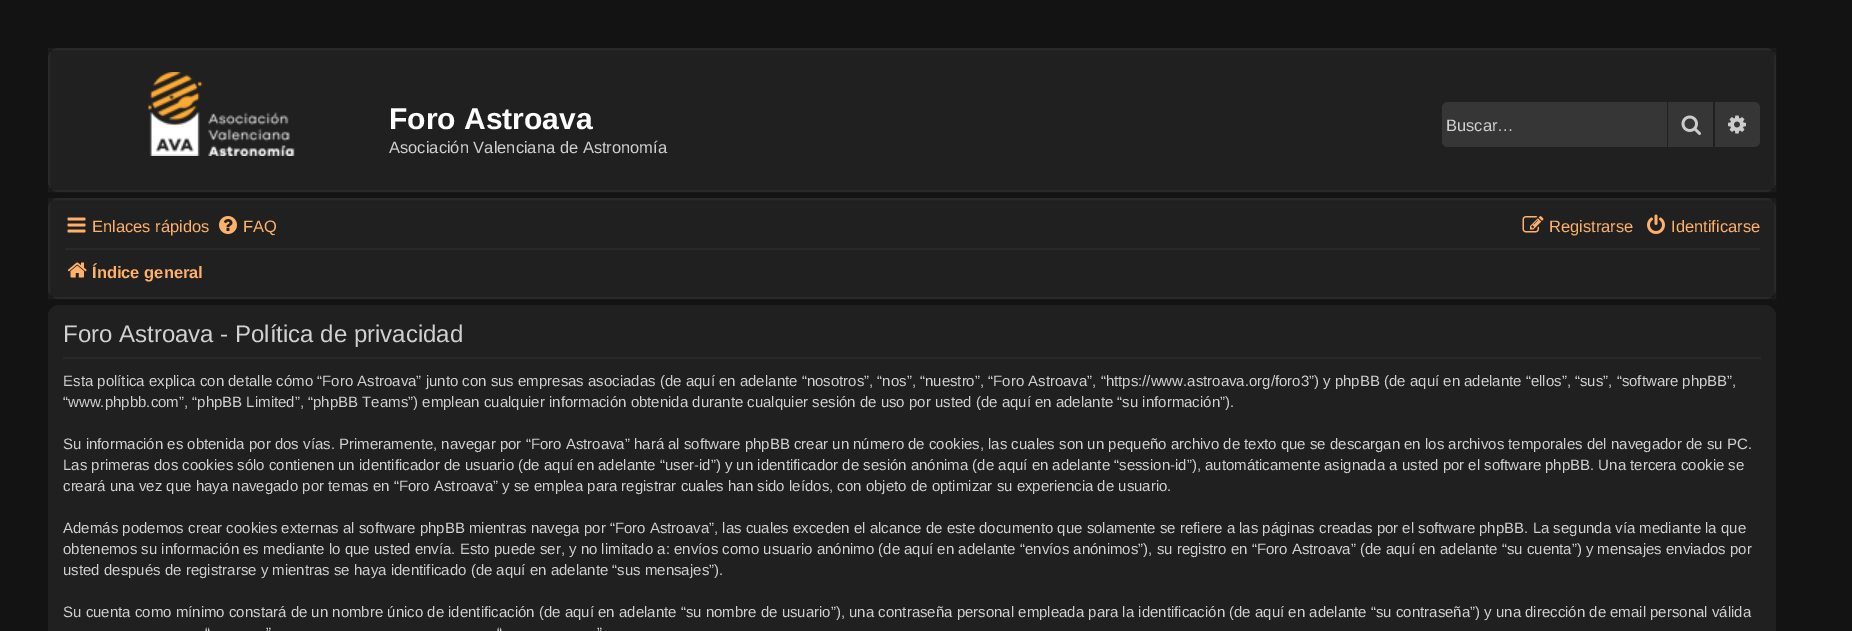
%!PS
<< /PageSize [1852 631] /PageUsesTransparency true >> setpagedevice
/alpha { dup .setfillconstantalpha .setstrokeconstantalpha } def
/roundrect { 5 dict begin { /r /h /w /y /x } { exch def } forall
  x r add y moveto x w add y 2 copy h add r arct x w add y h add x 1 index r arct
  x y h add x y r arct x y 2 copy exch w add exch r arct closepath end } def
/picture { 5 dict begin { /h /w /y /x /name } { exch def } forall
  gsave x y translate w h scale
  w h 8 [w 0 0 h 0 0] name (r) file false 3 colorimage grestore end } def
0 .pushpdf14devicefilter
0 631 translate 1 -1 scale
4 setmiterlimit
0.075 setgray
0 0 1852 631 rectfill
0.125 setgray
48 48 1728 144 11 roundrect fill
0.04 alpha
1 setgray
2 setlinewidth
49 49 1726 142 rectstroke
1 alpha
(img1.rgb) 148 72 147 84 picture
/LiberationSans-Bold [30 0 0 -30 0 0] selectfont
389 129 moveto (Foro Astroava) show
/LiberationSans-Regular [16.5 0 0 -16.5 0 0] selectfont
0.816 setgray
389 153 moveto (Asociación Valenciana de Astronomía) show
0.212 setgray
newpath 1448 102 moveto 1667 102 lineto 1667 147 lineto 1448 147 lineto 1444.5 147 1442 144.5 1442 141 curveto 1442 108 lineto 1442 104.5 1444.5 102 1448 102 curveto closepath fill
0.816 setgray
1446 131 moveto (Buscar…) show
0.212 setgray
1668 102 45 45 rectfill
(img2.rgb) 1681 115 20 20 picture
newpath 1715 102 moveto 1754 102 lineto 1757.5 102 1760 104.5 1760 108 curveto 1760 141 lineto 1760 144.5 1757.5 147 1754 147 curveto 1715 147 lineto closepath fill
(img3.rgb) 1728 115 18 19 picture
0.125 setgray
48 198 1728 101 11 roundrect fill
0.04 alpha
1 setgray
49 199 1726 99 rectstroke
1 alpha
(img4.rgb) 67 217 19 16 picture
1 0.69 0.416 setrgbcolor
92 232 moveto (Enlaces rápidos) show
(img5.rgb) 219 216 18 18 picture
243 232 moveto (FAQ) show
(img6.rgb) 1522 216 22 17 picture
1549 232 moveto (Registrarse) show
(img7.rgb) 1647 214 18 20 picture
1671 232 moveto (Identificarse) show
0.161 setgray
65 248 1695 2 rectfill
(img8.rgb) 67 262 20 16 picture
/LiberationSans-Bold [16.5 0 0 -16.5 0 0] selectfont
1 0.69 0.416 setrgbcolor
92 278 moveto (Índice general) show
0.125 setgray
48 305 1728 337 11 roundrect fill
0.161 setgray
63 357 1698 2 rectfill
/LiberationSans-Regular [24 0 0 -24 0 0] selectfont
0.816 setgray
63 342 moveto (Foro Astroava - Política de privacidad) show
/LiberationSans-Regular [15 0 0 -15 0 0] selectfont
63 386 moveto (Esta política explica con detalle cómo “Foro Astroava” junto con sus empresas asociadas \(de aquí en adelante “nosotros”, “nos”, “nuestro”, “Foro Astroava”, “https://www.astroava.org/foro3”\) y phpBB \(de aquí en adelante “ellos”, “sus”, “software phpBB”,) show
63 407 moveto (“www.phpbb.com”, “phpBB Limited”, “phpBB Teams”\) emplean cualquier información obtenida durante cualquier sesión de uso por usted \(de aquí en adelante “su información”\).) show
63 449 moveto (Su información es obtenida por dos vías. Primeramente, navegar por “Foro Astroava” hará al software phpBB crear un número de cookies, las cuales son un pequeño archivo de texto que se descargan en los archivos temporales del navegador de su PC.) show
63 470 moveto (Las primeras dos cookies sólo contienen un identificador de usuario \(de aquí en adelante “user-id”\) y un identificador de sesión anónima \(de aquí en adelante “session-id”\), automáticamente asignada a usted por el software phpBB. Una tercera cookie se) show
63 491 moveto (creará una vez que haya navegado por temas en “Foro Astroava” y se emplea para registrar cuales han sido leídos, con objeto de optimizar su experiencia de usuario.) show
63 533 moveto (Además podemos crear cookies externas al software phpBB mientras navega por “Foro Astroava”, las cuales exceden el alcance de este documento que solamente se refiere a las páginas creadas por el software phpBB. La segunda vía mediante la que) show
63 554 moveto (obtenemos su información es mediante lo que usted envía. Esto puede ser, y no limitado a: envíos como usuario anónimo \(de aquí en adelante “envíos anónimos”\), su registro en “Foro Astroava” \(de aquí en adelante “su cuenta”\) y mensajes enviados por) show
63 575 moveto (usted después de registrarse y mientras se haya identificado \(de aquí en adelante “sus mensajes”\).) show
63 617 moveto (Su cuenta como mínimo constará de un nombre único de identificación \(de aquí en adelante “su nombre de usuario”\), una contraseña personal empleada para la identificación \(de aquí en adelante “su contraseña”\) y una dirección de email personal válida) show
205 638 moveto (“) show
266 638 moveto (”) show
497 638 moveto (“) show
597 638 moveto (”) show
.poppdf14devicefilter showpage
